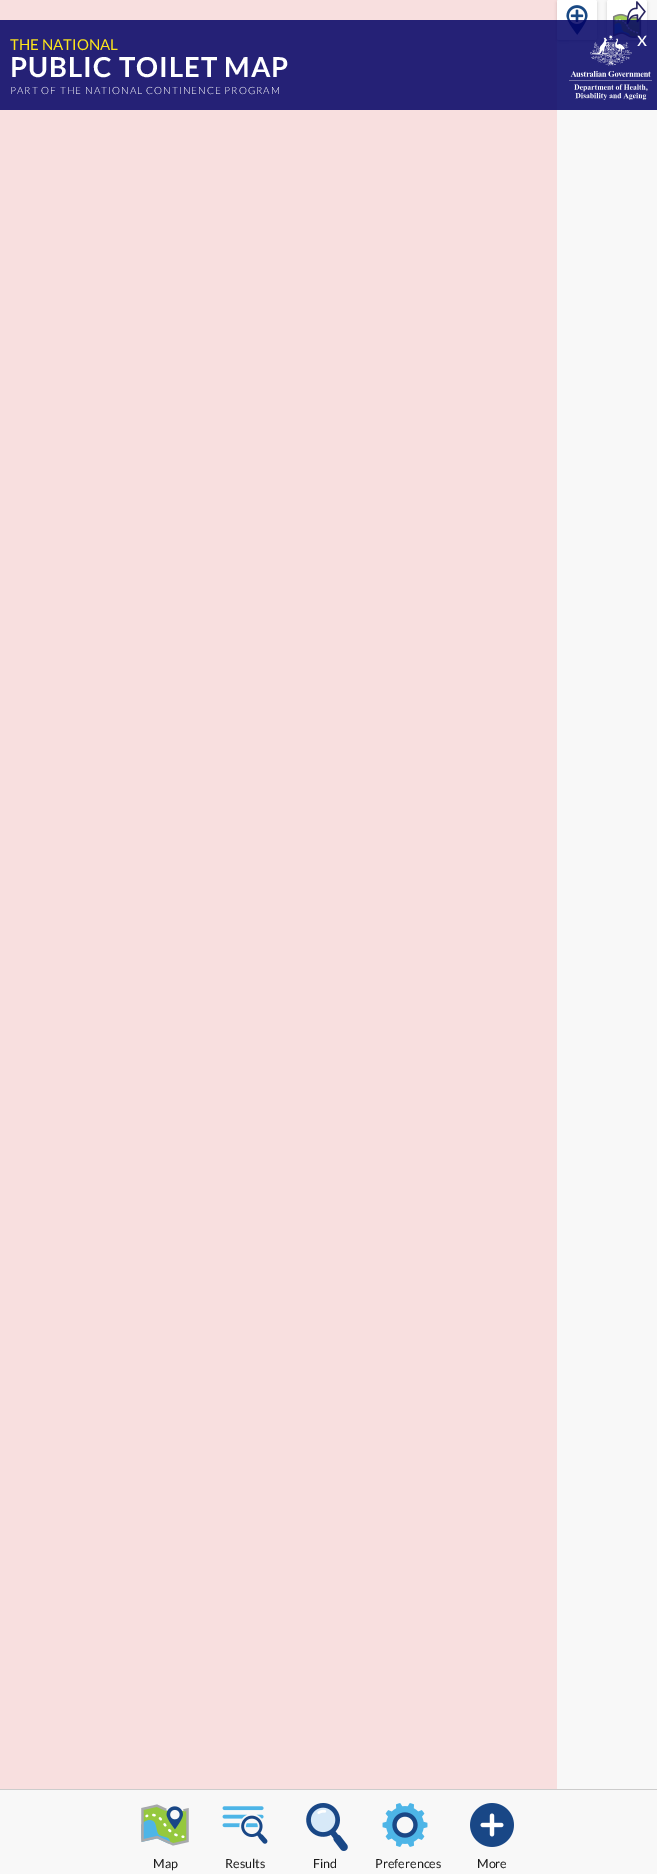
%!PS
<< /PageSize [657 1874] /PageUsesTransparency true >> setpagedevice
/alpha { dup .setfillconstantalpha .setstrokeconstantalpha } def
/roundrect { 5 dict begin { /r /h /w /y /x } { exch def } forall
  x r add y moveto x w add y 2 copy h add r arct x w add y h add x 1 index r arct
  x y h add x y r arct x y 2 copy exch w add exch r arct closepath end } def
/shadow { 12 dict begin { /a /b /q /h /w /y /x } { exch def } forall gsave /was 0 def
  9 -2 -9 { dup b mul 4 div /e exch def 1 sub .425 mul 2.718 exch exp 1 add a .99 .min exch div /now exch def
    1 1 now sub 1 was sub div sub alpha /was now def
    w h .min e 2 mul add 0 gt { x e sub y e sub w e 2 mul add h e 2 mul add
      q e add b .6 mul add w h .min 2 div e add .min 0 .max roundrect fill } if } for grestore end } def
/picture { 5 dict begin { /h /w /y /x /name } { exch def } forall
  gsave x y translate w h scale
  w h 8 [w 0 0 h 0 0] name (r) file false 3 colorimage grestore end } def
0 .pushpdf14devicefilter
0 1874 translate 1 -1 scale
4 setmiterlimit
0.973 setgray
0 0 657 1874 rectfill
0 setgray
558 2 38 38 1 2 0.3 shadow
0.1 alpha
0.98 0 0 setrgbcolor
0 0 557 1789 rectfill
1 alpha
1 setgray
557 0 40 40 2 roundrect fill
(img1.rgb) 566 5 22 30 picture
0 setgray
608 2 38 38 1 2 0.3 shadow
1 setgray
607 0 40 40 2 roundrect fill
(img2.rgb) 612 1 34 37 picture
0.85 alpha
0 0 0.392 setrgbcolor
0 20 657 90 rectfill
1 alpha
(img3.rgb) 569 35 83 65 picture
/Lato-Regular [15 0 0 -15 0 0] selectfont
0.988 0.898 0.106 setrgbcolor
10 50 moveto (THE NATIONAL) show
/Lato-Bold [27.5 0 0 -27.5 0 0] selectfont
1 setgray
10 77 moveto 1 0 (PUBLIC TOILET MAP) ashow
/Lato-Light [10 0 0 -10 0 0] selectfont
10 94 moveto 1 0 (PART OF THE NATIONAL CONTINENCE PROGRAM) ashow
/Lato-Regular [20 0 0 -20 0 0] selectfont
637 46 moveto (x) show
0.8 setgray
0 1789 657 1 rectfill
(img4.rgb) 141 1804 48 42 picture
/Lato-Regular [12.5 0 0 -12.5 0 0] selectfont
0.11 setgray
153 1868 moveto (Map) show
(img5.rgb) 222 1806 46 38 picture
225 1868 moveto (Results) show
(img6.rgb) 306 1803 42 48 picture
313 1868 moveto (Find) show
(img7.rgb) 382 1803 46 44 picture
375 1868 moveto (Preferences) show
(img8.rgb) 470 1803 44 44 picture
477 1868 moveto (More) show
.poppdf14devicefilter showpage
